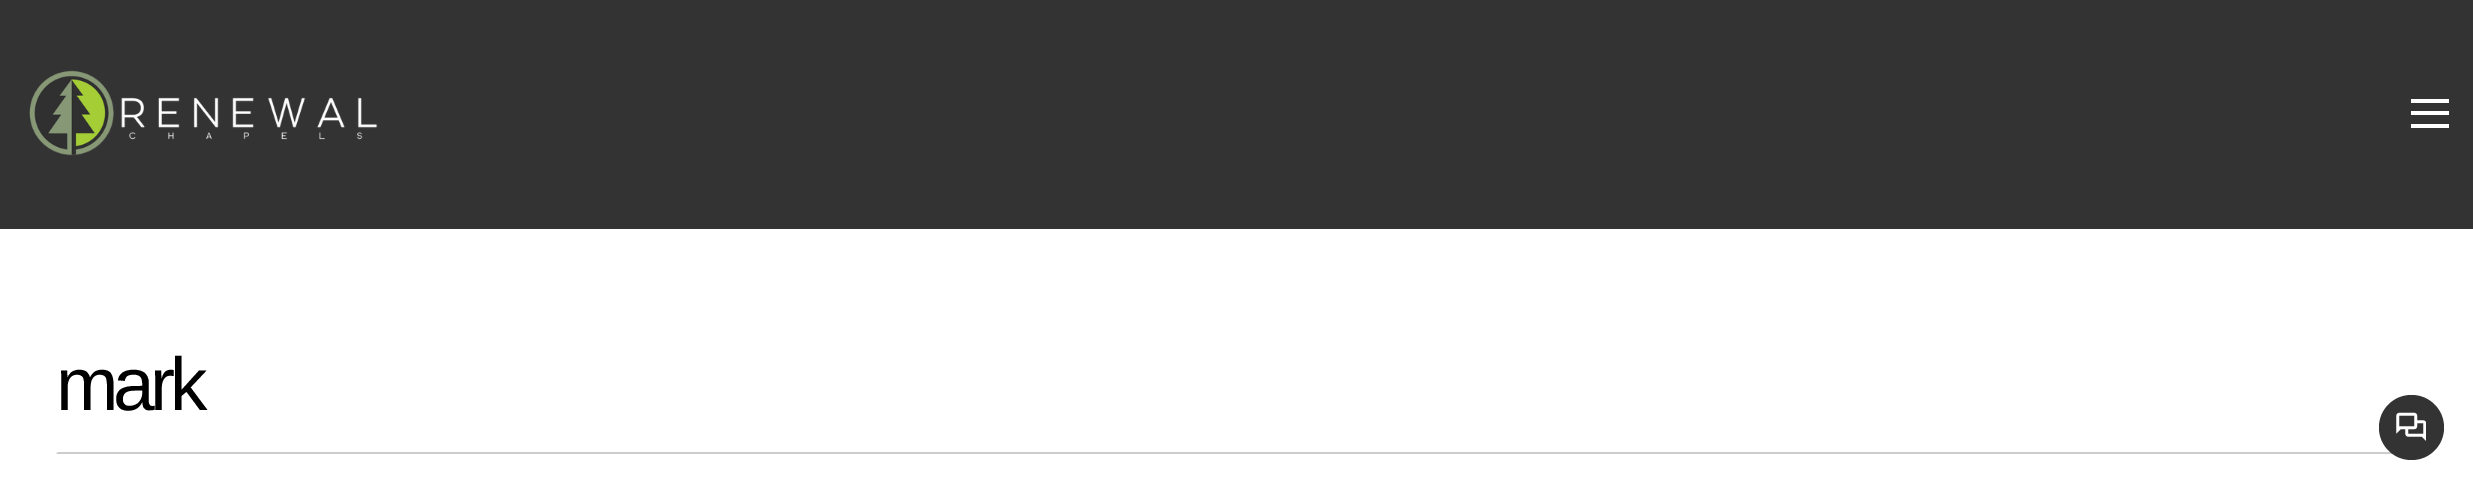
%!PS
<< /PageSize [2473 489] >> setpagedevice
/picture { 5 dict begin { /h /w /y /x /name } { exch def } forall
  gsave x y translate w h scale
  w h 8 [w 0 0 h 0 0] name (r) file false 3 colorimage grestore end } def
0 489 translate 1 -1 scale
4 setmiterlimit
1 setgray
0 0 2473 489 rectfill
0.2 setgray
0 0 2473 229 rectfill
(img1.rgb) 29 70 349 86 picture
1 setgray
2411 99 38 4 rectfill
2411 111 38 4 rectfill
2411 124 38 4 rectfill
/LiberationSans-Regular [75 0 0 -75 0 0] selectfont
0 setgray
56 410 moveto -5 0 (mark) ashow
0.8 setgray
newpath 2420 454 moveto 56 454 lineto 58 452 lineto 2419 452 lineto closepath fill
0.2 setgray
newpath 2411.5 427.5 32.5 0 360 arc closepath fill
(img2.rgb) 2396 412 30 29 picture
showpage
